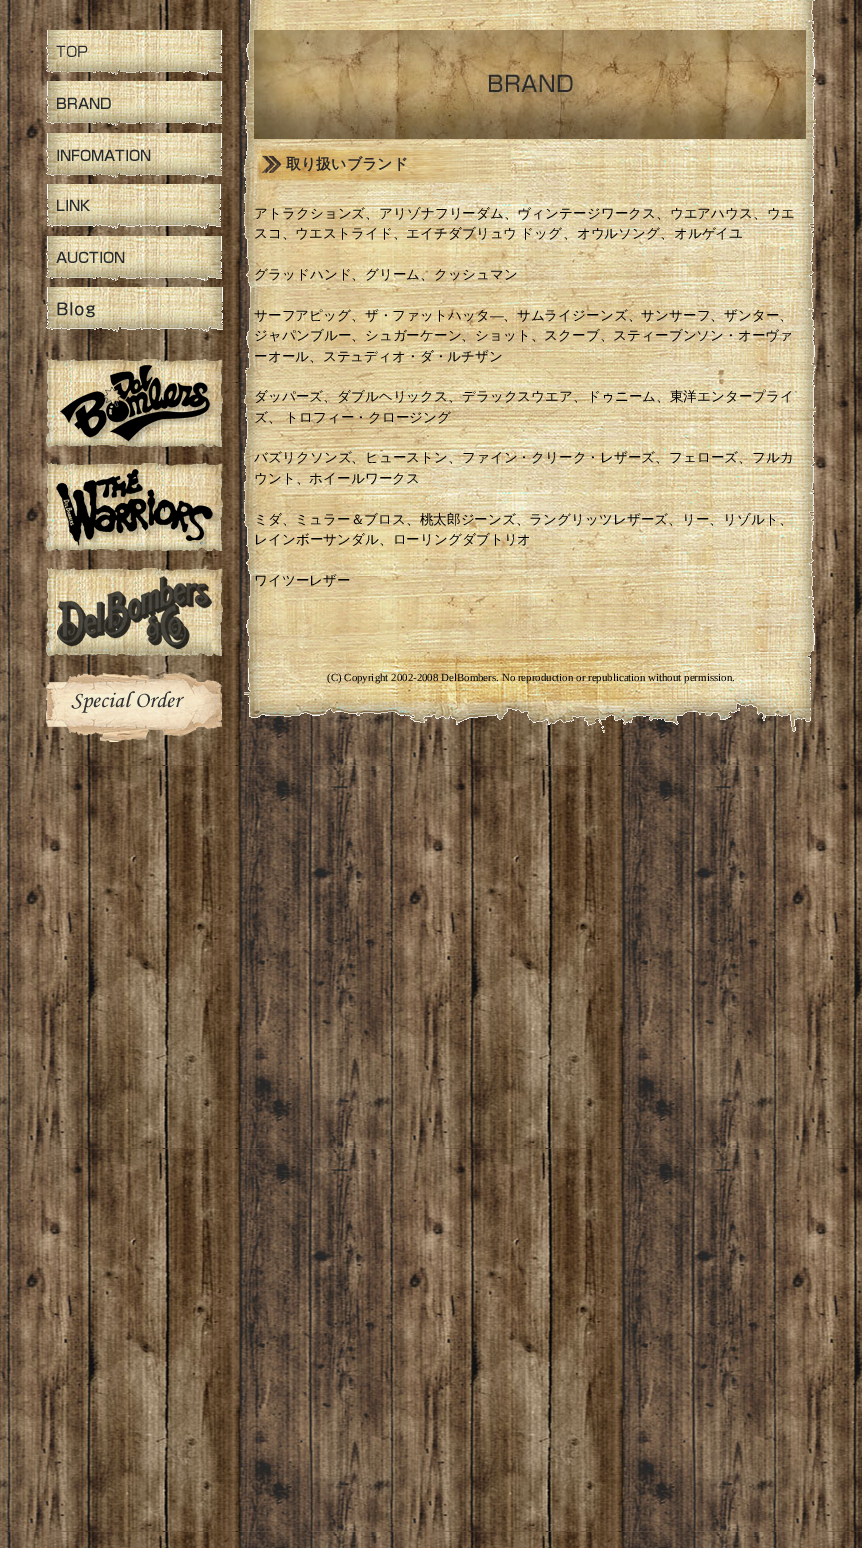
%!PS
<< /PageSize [862 1548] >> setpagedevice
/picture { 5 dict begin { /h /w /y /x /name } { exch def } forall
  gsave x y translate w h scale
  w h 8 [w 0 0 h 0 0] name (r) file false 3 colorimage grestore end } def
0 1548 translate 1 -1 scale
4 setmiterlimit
1 setgray
0 0 862 1548 rectfill
(img1.rgb) 0 0 862 1548 picture
(img2.rgb) 46 30 176 45 picture
(img3.rgb) 46 81 176 45 picture
(img4.rgb) 46 133 176 45 picture
(img5.rgb) 47 184 174 45 picture
(img6.rgb) 46 236 176 45 picture
(img7.rgb) 46 287 177 45 picture
(img8.rgb) 46 359 177 88 picture
(img9.rgb) 46 463 177 88 picture
(img10.rgb) 46 568 177 88 picture
(img11.rgb) 46 672 176 70 picture
(img12.rgb) 244 0 572 652 picture
(img13.rgb) 254 30 552 109 picture
(img14.rgb) 254 145 257 38 picture
/WenQuanYiZenHei-Bold [15 0 0 -15 0 0] selectfont
0.161 0.153 0.157 setrgbcolor
286 169 moveto (取り扱いブランド) show
/WenQuanYiZenHei-Medium [13.6 0 0 -13.6 0 0] selectfont
0 setgray
254 218 moveto (アトラクションズ、アリゾナフリーダム、ヴィンテージワークス、ウエアハウス、ウエ) show
254 238 moveto (スコ、ウエストライド、) show
406 238 moveto -1 0 32 (エイチダブリュウ ドッグ) widthshow
563 238 moveto (、オウルソング、オルゲイユ) show
254 279 moveto (グラッドハンド、グリーム、クッシュマン) show
254 320 moveto (サーフアピッグ、ザ・ファットハッタ) show
/LiberationSerif-Regular [13.6 0 0 -13.6 0 0] selectfont
490 320 moveto (―) show
/WenQuanYiZenHei-Medium [13.6 0 0 -13.6 0 0] selectfont
503 320 moveto (、サムライジーンズ、サンサーフ、ザンター、) show
254 340 moveto (ジャパンブルー、シュガーケーン、ショット、スクーブ、スティーブンソン・オーヴァ) show
254 361 moveto (ーオール、ステュディオ・ダ・ルチザン) show
254 401 moveto (ダッパーズ、ダブルヘリックス、デラックスウエア、ドゥニーム、東洋エンタープライ) show
254 422 moveto (ズ、) show
285 422 moveto (トロフィー・クロージング) show
254 462 moveto (バズリクソンズ、ヒューストン、ファイン・クリーク・レザーズ、フェローズ、フルカ) show
254 483 moveto (ウント、ホイールワークス) show
254 524 moveto (ミダ、ミュラー＆ブロス、桃太郎ジーンズ、ラングリッツレザーズ、リー、リゾルト、) show
254 544 moveto (レインボーサンダル、ローリングダブトリオ) show
254 585 moveto (ワイツーレザー) show
(img15.rgb) 244 652 567 81 picture
/LiberationSerif-Regular [10.9 0 0 -10.9 0 0] selectfont
327 681 moveto (\(C\) Copyright 2002-2008 DelBombers. No reproduction or republication without permission.) show
showpage
